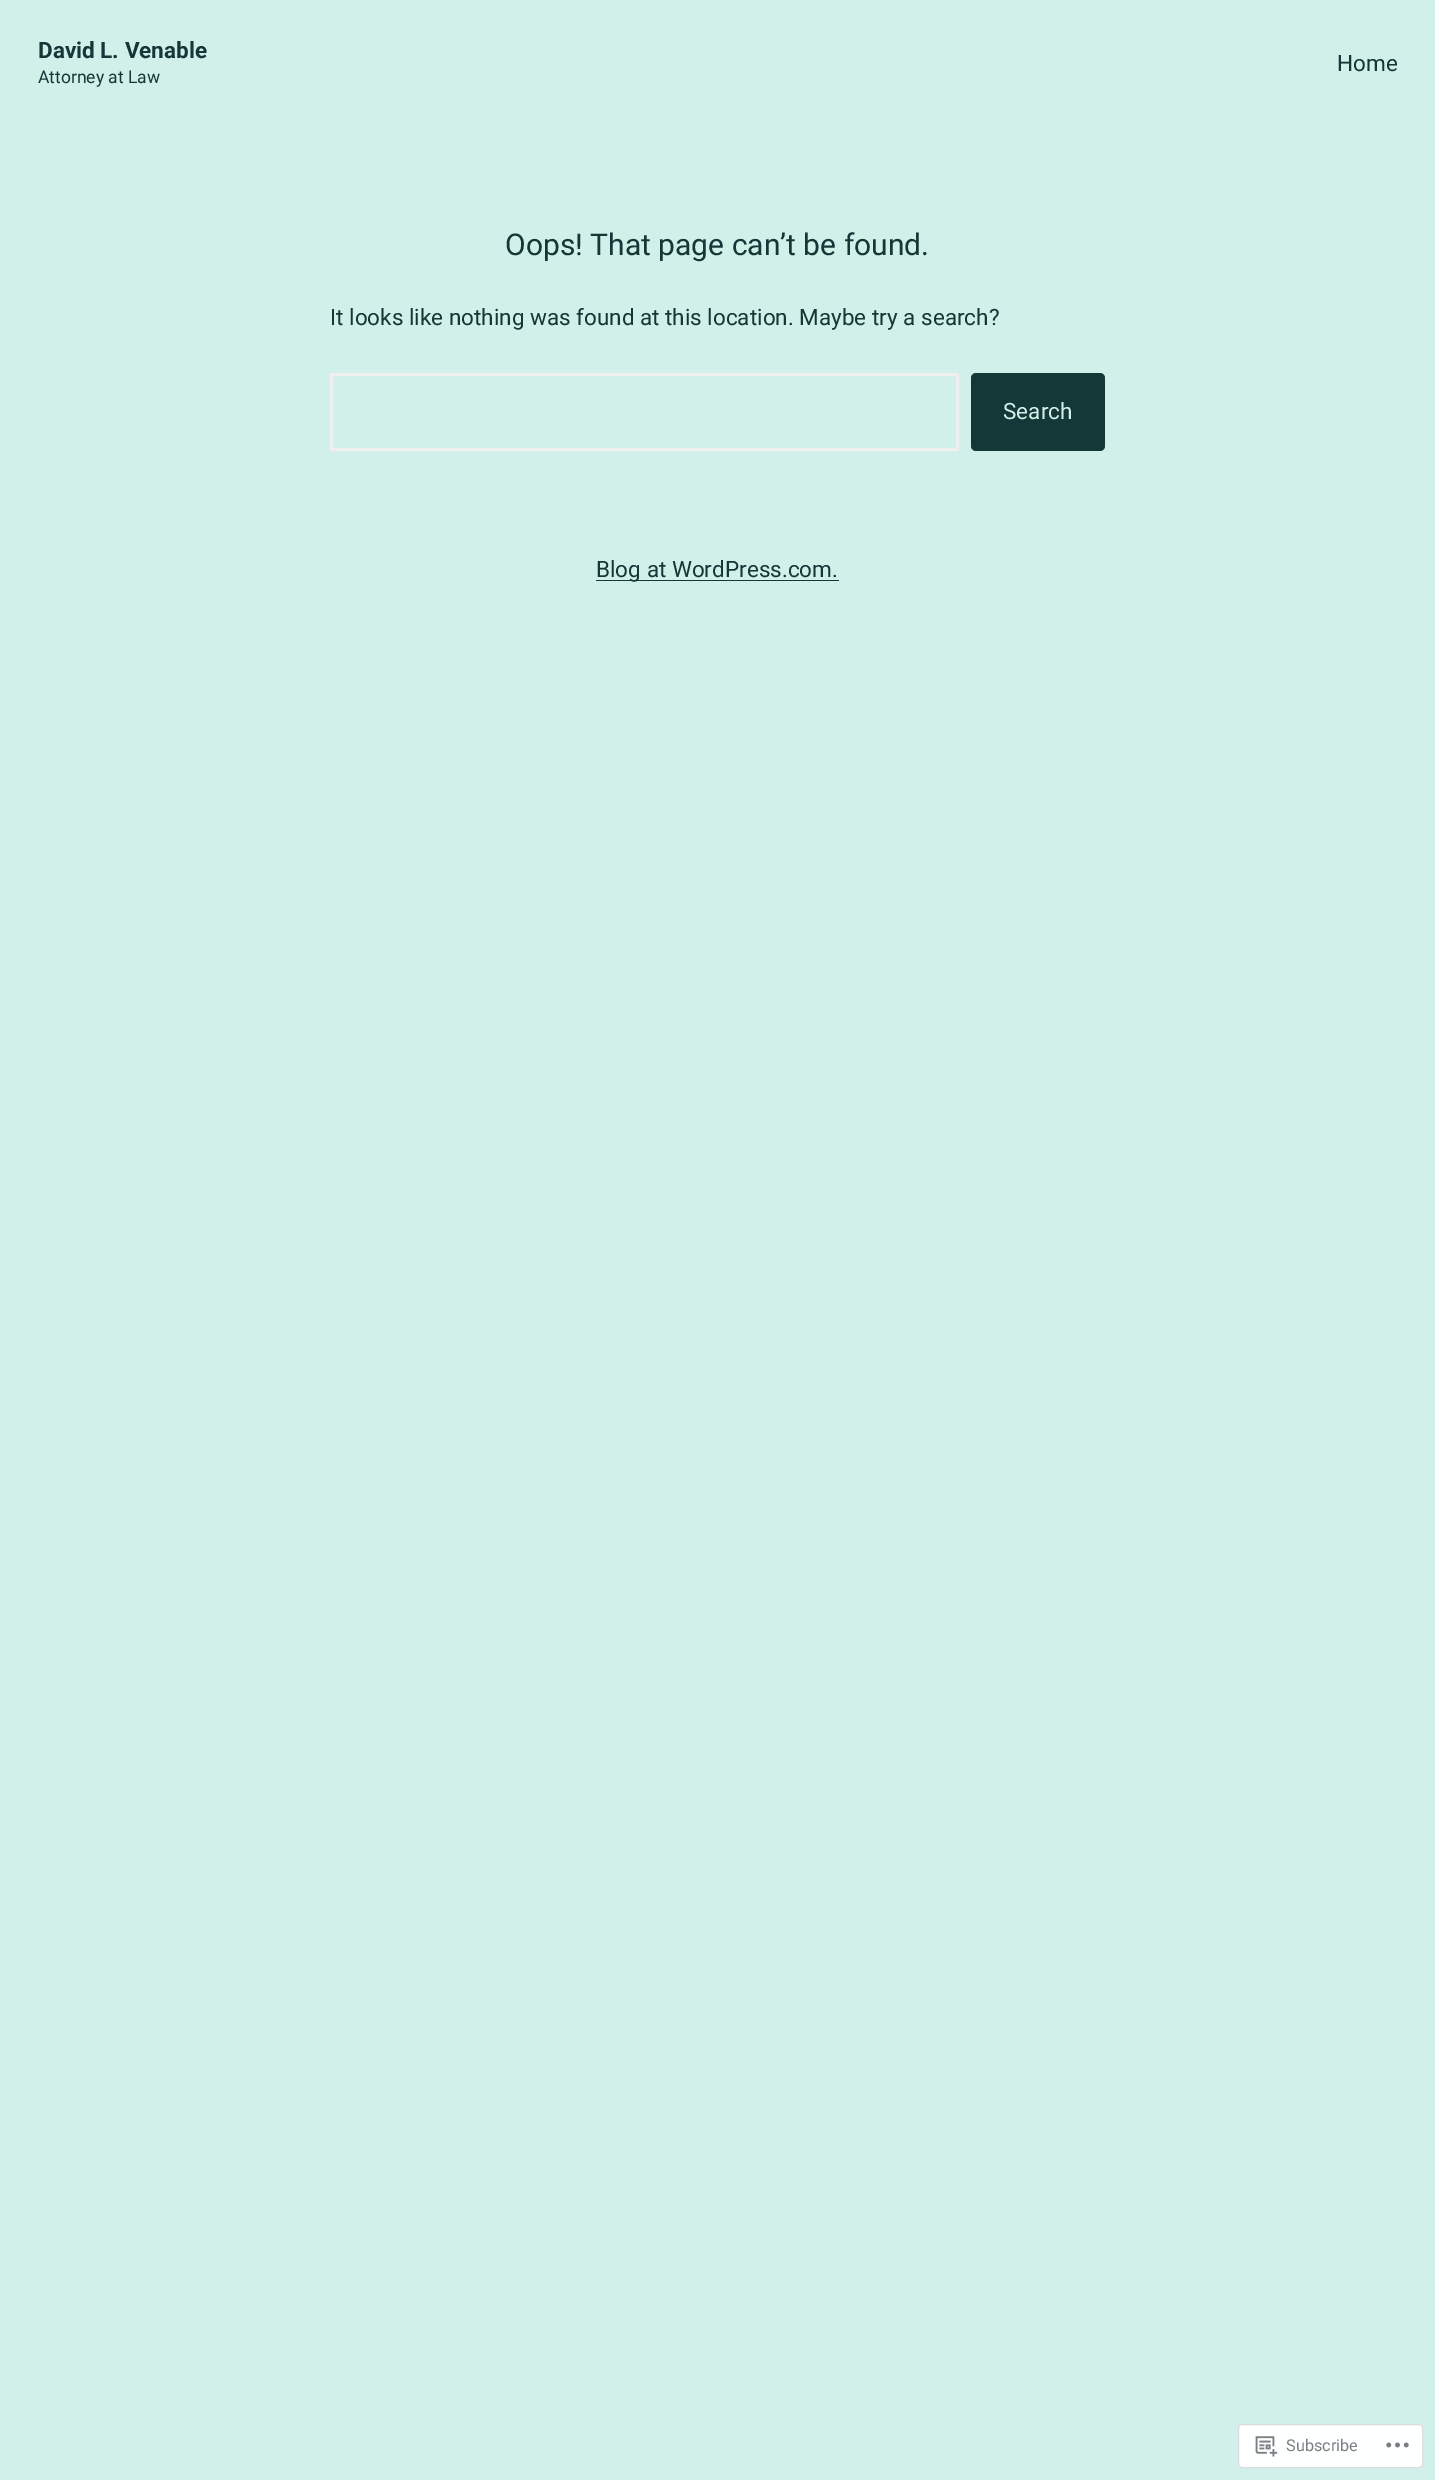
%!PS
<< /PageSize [1435 2480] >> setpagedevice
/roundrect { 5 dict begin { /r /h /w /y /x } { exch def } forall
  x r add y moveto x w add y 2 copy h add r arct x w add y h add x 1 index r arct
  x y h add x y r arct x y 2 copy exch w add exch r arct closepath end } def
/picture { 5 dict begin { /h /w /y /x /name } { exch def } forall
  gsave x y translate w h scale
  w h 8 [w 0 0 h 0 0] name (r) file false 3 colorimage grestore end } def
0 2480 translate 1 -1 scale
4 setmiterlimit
0.824 0.941 0.918 setrgbcolor
0 0 1435 2480 rectfill
/Roboto-Bold [22.5 0 0 -22.5 0 0] selectfont
0.075 0.22 0.216 setrgbcolor
38 58 moveto (David L. Venable) show
/Roboto-Regular [17.5 0 0 -17.5 0 0] selectfont
38 83 moveto (Attorney at Law) show
/Roboto-Regular [22.5 0 0 -22.5 0 0] selectfont
1337 71 moveto (Home) show
/Roboto-Regular [30 0 0 -30 0 0] selectfont
505 255 moveto (Oops! That page can’t be found.) show
/Roboto-Regular [22.5 0 0 -22.5 0 0] selectfont
330 325 moveto (It looks like nothing was found at this location. Maybe try a search?) show
0.937 setgray
3 setlinewidth
331.5 374.5 626 75 rectstroke
0.075 0.22 0.216 setrgbcolor
971 373 134 78 5 roundrect fill
0.824 0.941 0.918 setrgbcolor
1003 419 moveto (Search) show
0.075 0.22 0.216 setrgbcolor
596 580 243 1 rectfill
596 577 moveto (Blog at WordPress.com.) show
0.996 1 1 setrgbcolor
1238.5 2424.5 184 43 3.5 roundrect gsave fill grestore
0.863 0.863 0.871 setrgbcolor
1 setlinewidth
stroke
(img1.rgb) 1255 2436 23 21 picture
/Roboto-Regular [16.25 0 0 -16.25 0 0] selectfont
0.478 0.494 0.518 setrgbcolor
1286 2451 moveto (Subscribe) show
(img2.rgb) 1386 2442 23 6 picture
showpage
